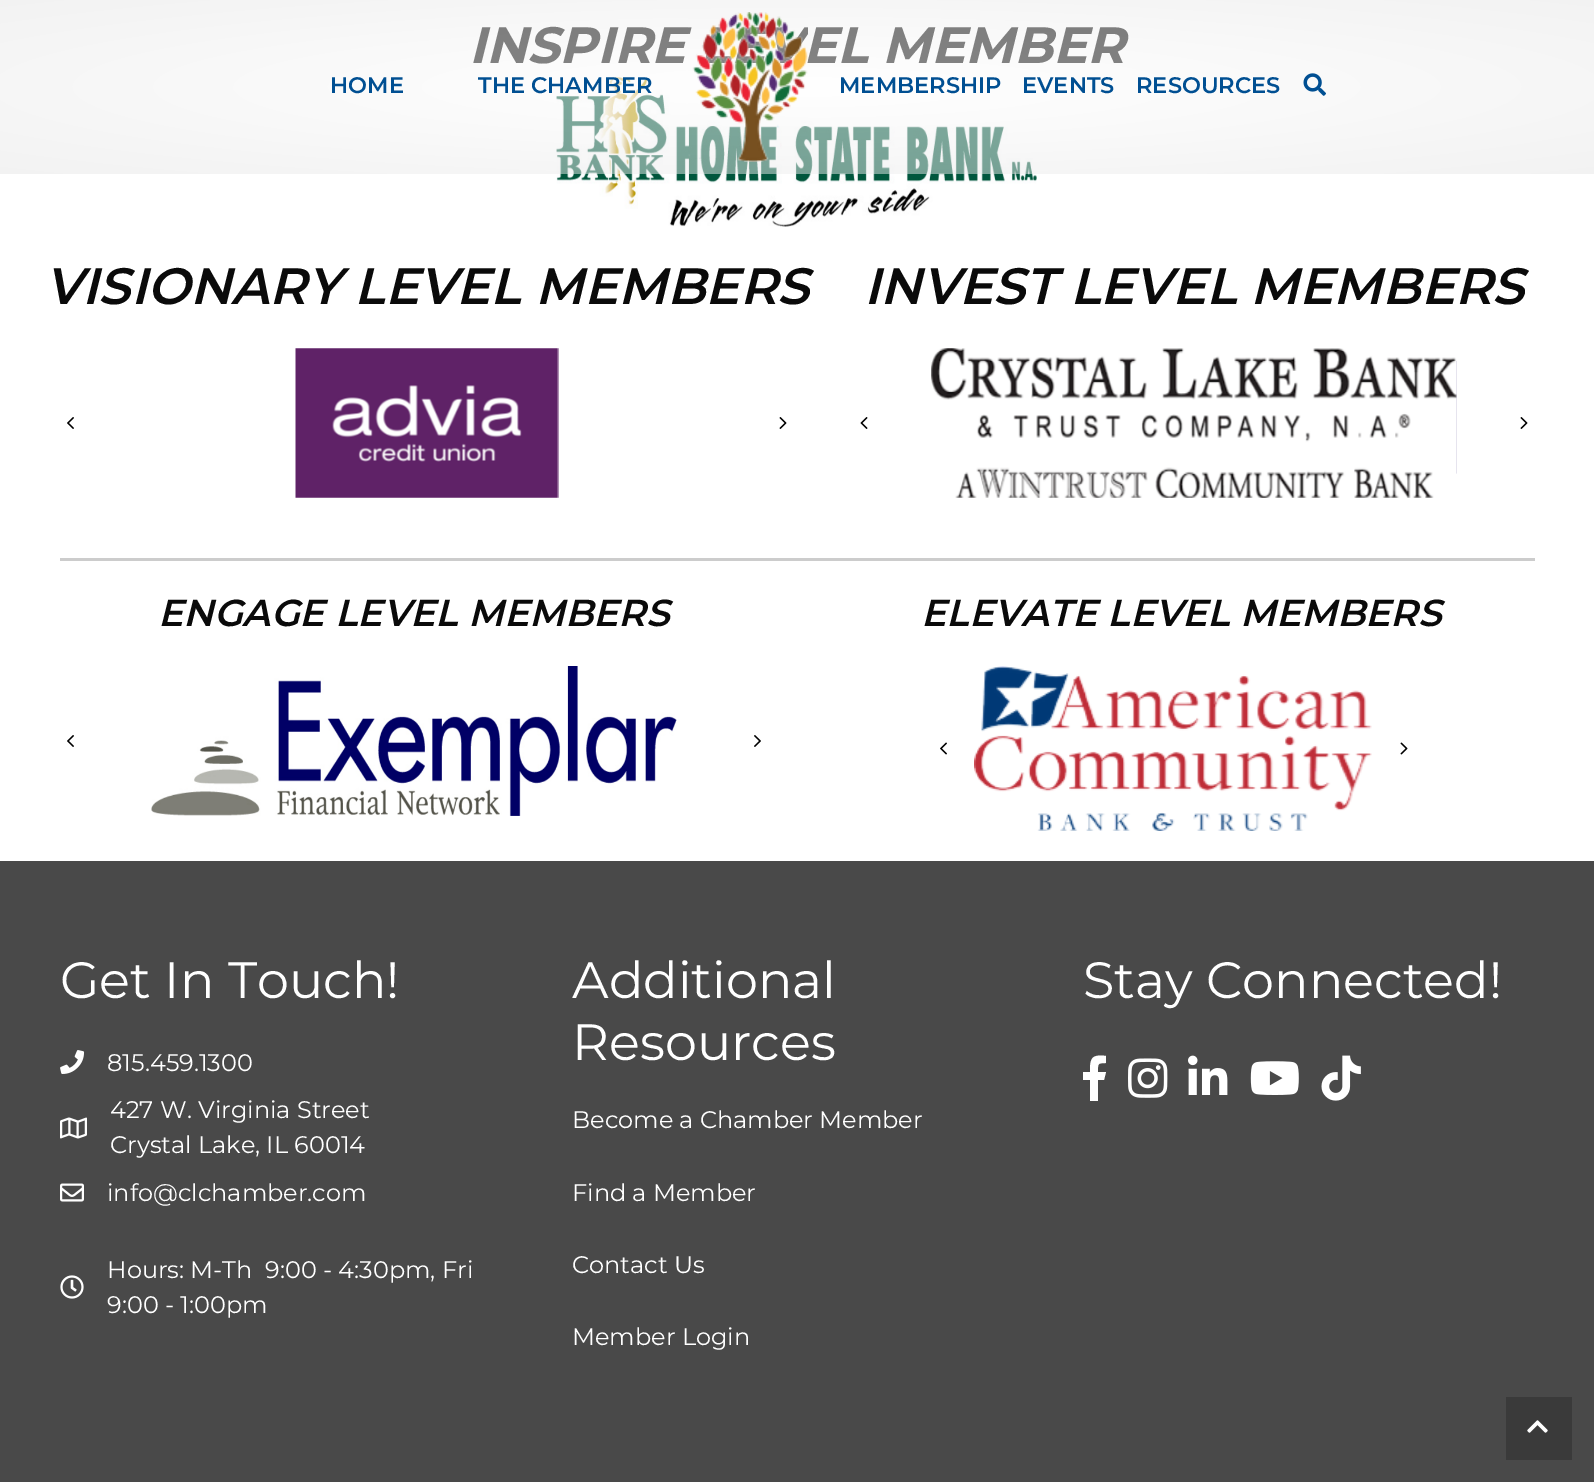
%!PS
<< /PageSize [1594 1482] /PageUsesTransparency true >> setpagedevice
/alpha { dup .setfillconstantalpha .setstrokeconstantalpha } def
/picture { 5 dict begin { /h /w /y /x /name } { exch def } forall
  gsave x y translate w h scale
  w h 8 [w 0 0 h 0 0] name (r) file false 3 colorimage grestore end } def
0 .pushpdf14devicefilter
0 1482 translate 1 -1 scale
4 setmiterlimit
1 setgray
0 0 1594 1482 rectfill
/Montserrat-BoldItalic [51 0 0 -51 0 0] selectfont
0.039 setgray
469 63 moveto (INSPIRE) show
803 63 moveto (EL MEMBER) show
(img1.rgb) 556 76 481 151 picture
/Montserrat-SemiBoldItalic [51 0 0 -51 0 0] selectfont
45 304 moveto (VISIONARY LEVEL MEMBERS) show
(img2.rgb) 67 417 7 12 picture
(img3.rgb) 295 348 264 150 picture
(img4.rgb) 779 417 8 12 picture
864 304 moveto (INVEST LEVEL MEMBERS) show
(img5.rgb) 860 417 8 12 picture
(img6.rgb) 931 348 526 150 picture
(img7.rgb) 1456 361 1 113 picture
(img4.rgb) 1520 417 8 12 picture
0.8 setgray
60 558 1475 3 rectfill
/Montserrat-SemiBoldItalic [37.5 0 0 -37.5 0 0] selectfont
0.039 setgray
158 626 moveto (ENGAGE LEVEL MEMBERS) show
(img2.rgb) 67 735 7 12 picture
(img8.rgb) 151 666 526 150 picture
(img9.rgb) 754 735 7 12 picture
921 626 moveto (ELEVATE LEVEL MEMBERS) show
(img10.rgb) 940 742 7 13 picture
(img11.rgb) 974 666 398 165 picture
(img12.rgb) 1400 742 8 13 picture
0.286 setgray
0 861 1594 621 rectfill
/Montserrat-Regular [51 0 0 -51 0 0] selectfont
1 setgray
60 998 moveto (Get In Touch!) show
(img13.rgb) 60 1050 25 24 picture
/Montserrat-Regular [24 0 0 -24 0 0] selectfont
107 1071 moveto (815.459.1300) show
(img14.rgb) 60 1117 27 22 picture
110 1118 moveto (427 W. Virginia Street) show
110 1153 moveto (Crystal Lake, IL 60014) show
(img15.rgb) 60 1183 24 19 picture
107 1201 moveto (info@clchamber.com) show
(img16.rgb) 60 1275 24 24 picture
107 1278 moveto (Hours: M-Th  9:00 - 4:30pm, Fri) show
107 1313 moveto (9:00 - 1:00pm) show
/Montserrat-Regular [51 0 0 -51 0 0] selectfont
572 998 moveto (Additional) show
572 1060 moveto (Resources) show
/Montserrat-Regular [24 0 0 -24 0 0] selectfont
572 1128 moveto (Become a Chamber Member) show
572 1201 moveto (Find a Member) show
572 1273 moveto (Contact Us) show
572 1345 moveto (Member Login) show
/Montserrat-Regular [51 0 0 -51 0 0] selectfont
1083 998 moveto (Stay Connected!) show
newpath 1090 1101 moveto 1090 1080 lineto 1083 1080 lineto 1083 1072 lineto 1090 1072 lineto 1090 1059 1091 1054 1106 1056 curveto 1106 1063 lineto 1097 1063 1098 1064 1098 1072 curveto 1106 1072 lineto 1104 1080 lineto 1098 1080 lineto 1098 1101 lineto closepath fill
(img17.rgb) 1128 1058 40 40 picture
(img18.rgb) 1188 1055 40 40 picture
(img19.rgb) 1250 1061 49 34 picture
(img20.rgb) 1321 1055 40 46 picture
0.5 alpha
gsave newpath 0 0 moveto 1594 0 lineto 1594 174 lineto 0 174 lineto closepath clip newpath 797 87 translate 1127 123 scale
<< /ShadingType 3 /ColorSpace /DeviceRGB /Coords [0 0 0 0 0 1] /Extend [true true] /Function << /FunctionType 2 /Domain [0 1] /C0 [1 1 1] /C1 [0.902 0.902 0.902] /N 1 >> >> shfill grestore
/Montserrat-SemiBold [22.5 0 0 -22.5 0 0] selectfont
1 alpha
0 0.31 0.573 setrgbcolor
330 93 moveto (HOME) show
478 93 moveto (THE CHAMBER) show
(img21.rgb) 688 12 120 150 picture
839 93 moveto (MEMBERSHIP) show
1022 93 moveto (EVENTS) show
1136 93 moveto (RESOURCES) show
(img22.rgb) 1303 73 23 23 picture
0.227 setgray
1506 1397 66 63 rectfill
(img23.rgb) 1527 1420 21 13 picture
.poppdf14devicefilter showpage
